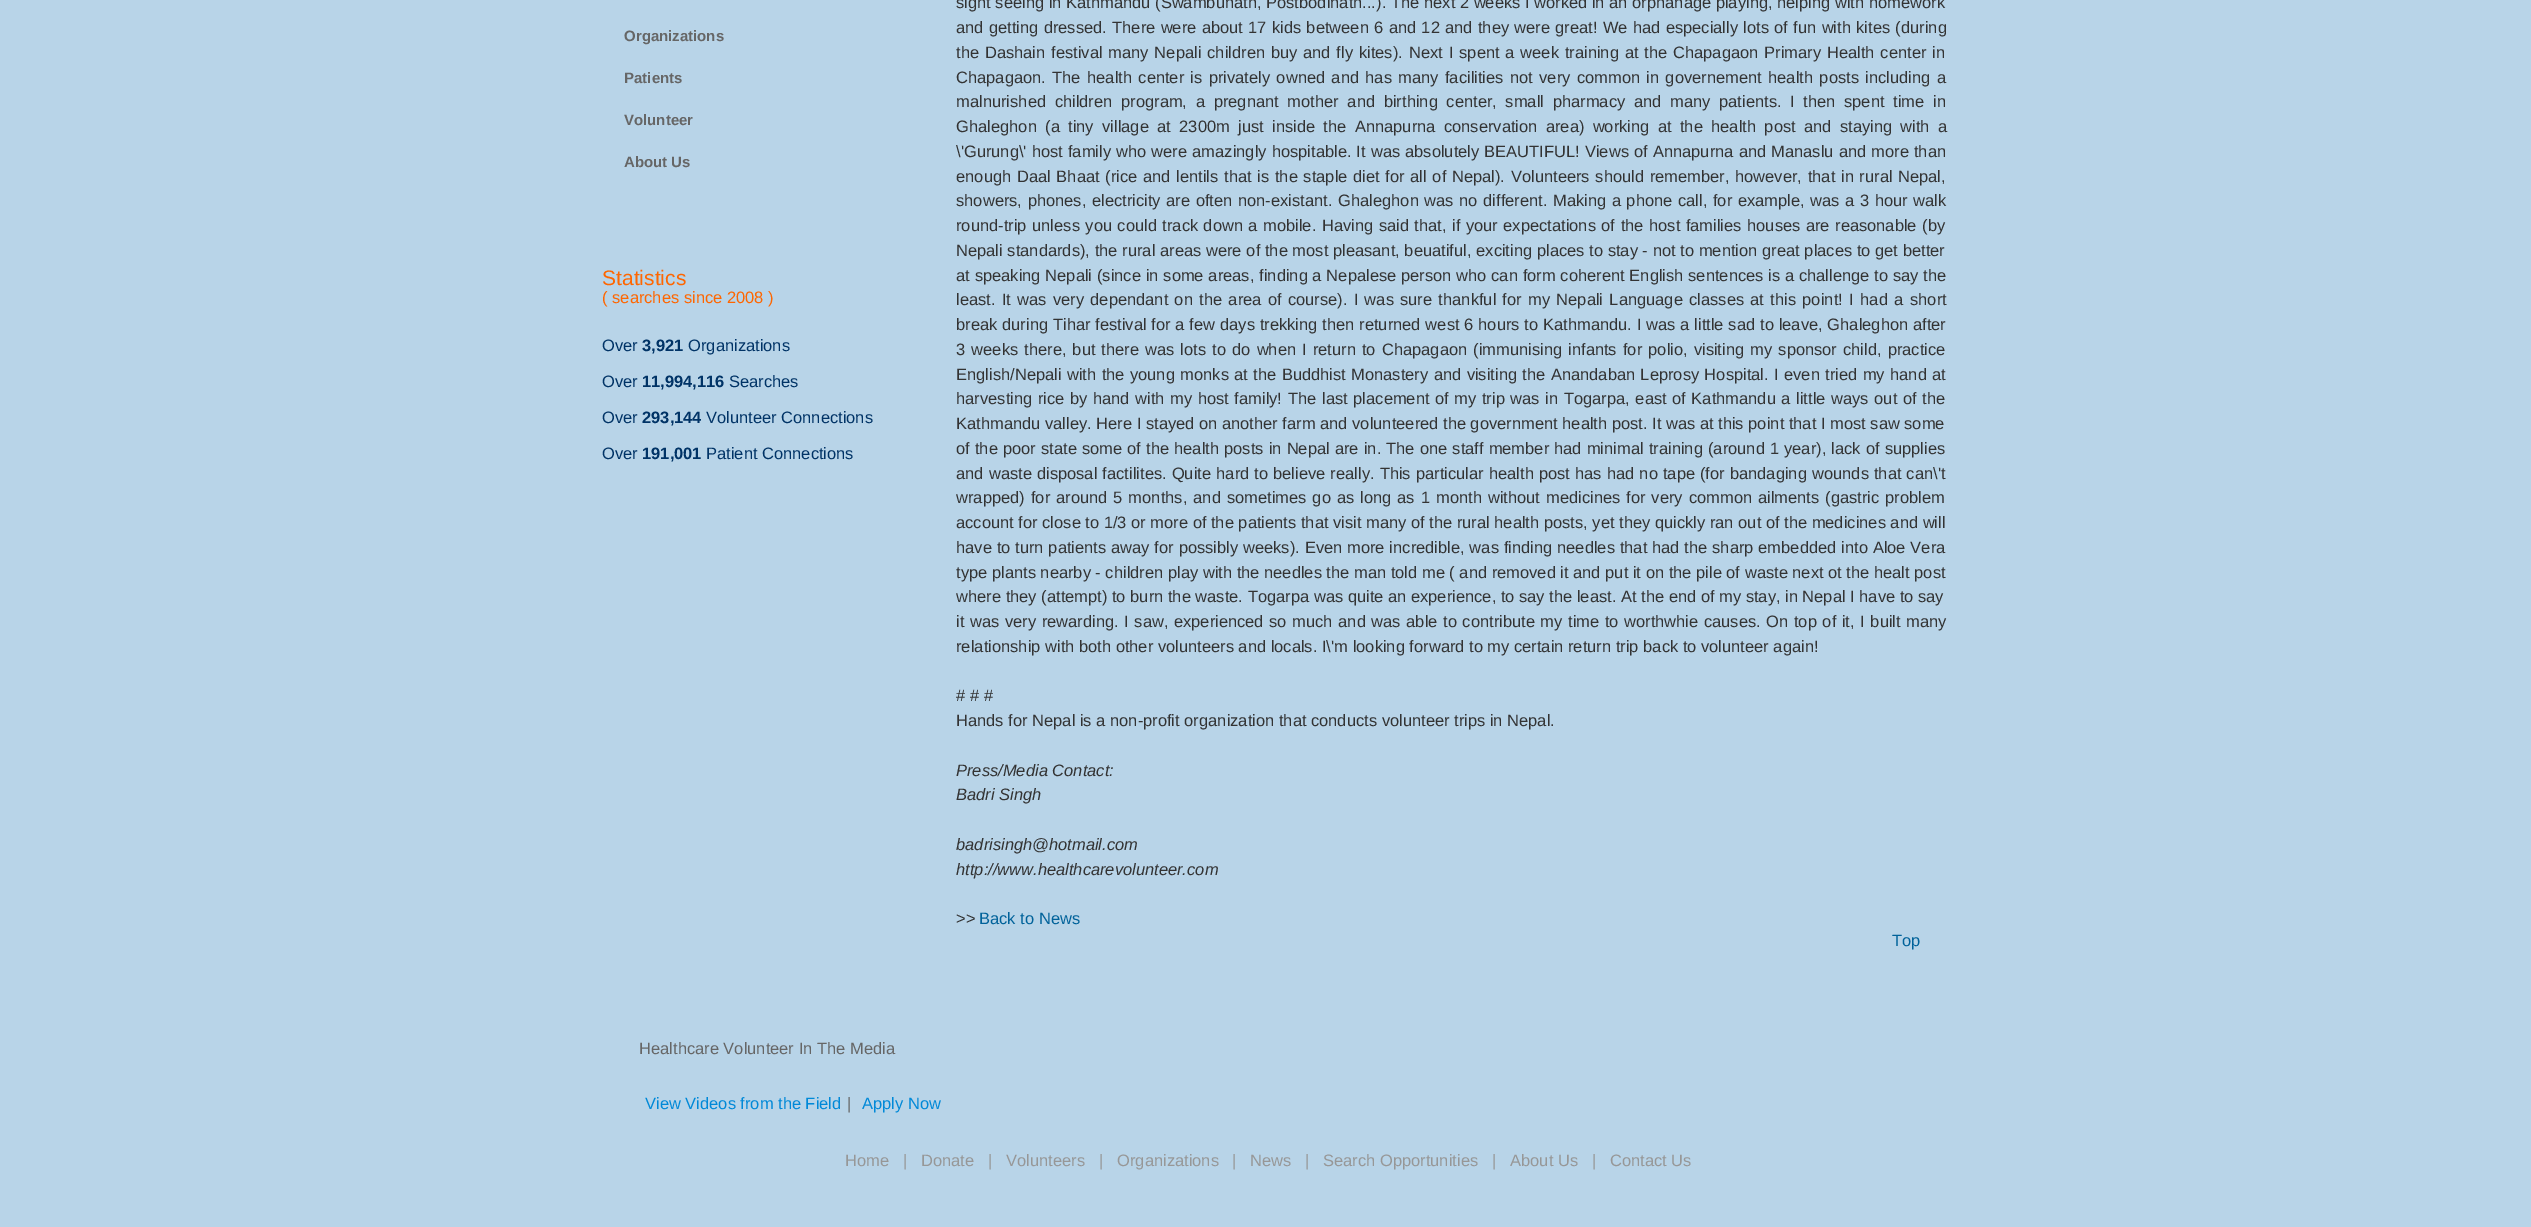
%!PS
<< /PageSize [2531 1227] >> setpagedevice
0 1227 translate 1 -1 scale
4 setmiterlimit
0.722 0.831 0.91 setrgbcolor
0 0 2531 1227 rectfill
/LiberationSans-Bold [15 0 0 -15 0 0] selectfont
0.4 setgray
624 41 moveto (Organizations) show
624 83 moveto (Patients) show
624 125 moveto (Volunteer) show
624 167 moveto (About Us) show
/LiberationSans-Regular [21 0 0 -21 0 0] selectfont
1 0.4 0 setrgbcolor
602 285 moveto (Statistics) show
/LiberationSans-Regular [16.5 0 0 -16.5 0 0] selectfont
602 303 moveto (\( searches since 2008 \)) show
0 0.2 0.4 setrgbcolor
602 351 moveto (Over) show
/LiberationSans-Bold [16.5 0 0 -16.5 0 0] selectfont
642 351 moveto (3,921) show
/LiberationSans-Regular [16.5 0 0 -16.5 0 0] selectfont
688 351 moveto (Organizations) show
602 387 moveto (Over) show
/LiberationSans-Bold [16.5 0 0 -16.5 0 0] selectfont
642 387 moveto (11,994,116) show
/LiberationSans-Regular [16.5 0 0 -16.5 0 0] selectfont
729 387 moveto (Searches) show
602 423 moveto (Over) show
/LiberationSans-Bold [16.5 0 0 -16.5 0 0] selectfont
642 423 moveto (293,144) show
/LiberationSans-Regular [16.5 0 0 -16.5 0 0] selectfont
706 423 moveto (Volunteer Connections) show
602 459 moveto (Over) show
/LiberationSans-Bold [16.5 0 0 -16.5 0 0] selectfont
642 459 moveto (191,001) show
/LiberationSans-Regular [16.5 0 0 -16.5 0 0] selectfont
706 459 moveto (Patient Connections) show
0.2 setgray
956 8 moveto (sight seeing in Kathmandu \(Swambunath, Postbodinath...\).) show
1391 8 moveto (The next 2 weeks I worked in an orphanage playing, helping with homework) show
956 33 moveto 0.7 0 32 (and getting dressed. There were about 17 kids between 6 and 12 and they were great! We had especially lots of fun with kites \(during) widthshow
956 58 moveto 1.25 0 32 (the Dashain festival many Nepali children buy and fly kites\).) widthshow
1409 58 moveto 1.25 0 32 (Next I spent a week training at the Chapagaon Primary Health center in) widthshow
956 83 moveto 1.75 0 32 (Chapagaon. The health center is privately owned and has many facilities not very common in governement health posts including a) widthshow
956 107 moveto 4.1 0 32 (malnurished children program, a pregnant mother and birthing center, small pharmacy and many patients.) widthshow
1790 107 moveto 4.1 0 32 (I then spent time in) widthshow
956 132 moveto 3.75 0 32 (Ghaleghon \(a tiny village at 2300m just inside the Annapurna conservation area\) working at the health post and staying with a) widthshow
956 157 moveto 0.5 0 32 (\\'Gurung\\' host family who were amazingly hospitable. It was) widthshow
1405 157 moveto 0.5 0 32 (absolutely BEAUTIFUL! Views of Annapurna and Manaslu and more than) widthshow
956 182 moveto 1.1 0 32 (enough Daal Bhaat \(rice and lentils that is the staple diet for all of Nepal\). Volunteers should remember, however, that in rural Nepal,) widthshow
956 206 moveto 1 0 32 (showers, phones, electricity are often non-existant. Ghaleghon was no different. Making a phone call, for example, was a 3 hour walk) widthshow
956 231 moveto 0.9 0 32 (round-trip unless you could track down a mobile. Having said that, if your expectations of the host families houses are reasonable \(by) widthshow
956 256 moveto 0.1 0 32 (Nepali standards\), the rural areas were of the most pleasant, beuatiful, exciting places to stay - not to mention great places to get better) widthshow
956 281 moveto 0.2 0 32 (at speaking Nepali \(since in some areas, finding a Nepalese person who can form coherent English sentences is a challenge to say the) widthshow
956 305 moveto 1.7 0 32 (least. It was very dependant on the area of course\). I was sure thankful for my Nepali Language classes at this point!) widthshow
1849 305 moveto 2 0 32 (I had a short) widthshow
956 330 moveto 0.25 0 32 (break during Tihar festival for a few days trekking then returned west 6 hours to Kathmandu. I was a little sad to leave, Ghaleghon after) widthshow
956 355 moveto 1.5 0 32 (3 weeks there, but there was lots to do when I return to Chapagaon \(immunising infants for polio, visiting my sponsor child, practice) widthshow
956 380 moveto 0.8 0 32 (English/Nepali with the young monks at the Buddhist Monastery and visiting the Anandaban Leprosy Hospital. I even tried my hand at) widthshow
956 404 moveto 1 0 32 (harvesting rice by hand with my host family!) widthshow
1288 404 moveto 1 0 32 (The last placement of my trip was in Togarpa, east of Kathmandu a little ways out of the) widthshow
956 429 moveto (Kathmandu valley. Here I stayed on another farm and volunteered the government health post. It was at this point that I most saw some) show
956 454 moveto 0.5 0 32 (of the poor state some of the health posts in Nepal are in. The one staff member had minimal training \(around 1 year\), lack of supplies) widthshow
956 479 moveto 0.5 0 32 (and waste disposal factilites. Quite hard to believe really. This particular health post has had no tape \(for bandaging wounds that can\\'t) widthshow
956 503 moveto 1.4 0 32 (wrapped\) for around 5 months, and sometimes go as long as 1 month without medicines for very common ailments \(gastric problem) widthshow
956 528 moveto (account for close to 1/3 or more of the patients that visit many of the rural health posts, yet they quickly ran out of the medicines and will) show
956 553 moveto 0.25 0 32 (have to turn patients away for possibly weeks\). Even more incredible, was finding needles that had the sharp embedded into Aloe Vera) widthshow
956 578 moveto (type plants nearby - children play with the needles the man told me \( and removed it and put it on the pile of waste next ot the healt post) show
956 602 moveto (where they \(attempt\) to burn the waste. Togarpa was quite an experience, to say the least. At the end of my stay, in Nepal I have to say) show
956 627 moveto 1 0 32 (it was very rewarding. I saw, experienced so much and was able to contribute my time to worthwhie causes. On top of it, I built many) widthshow
956 652 moveto (relationship with both other volunteers and locals. I\\'m looking forward to my certain return trip back to volunteer again!) show
956 701 moveto (# # #) show
956 726 moveto (Hands for Nepal is a non-profit organization that conducts volunteer trips in Nepal.) show
/LiberationSans-Italic [16.5 0 0 -16.5 0 0] selectfont
956 776 moveto (Press/Media Contact:) show
956 800 moveto (Badri Singh) show
956 850 moveto (badrisingh@hotmail.com) show
956 875 moveto (http://www.healthcarevolunteer.com) show
/LiberationSans-Regular [16.5 0 0 -16.5 0 0] selectfont
956 924 moveto (>>) show
0 0.384 0.604 setrgbcolor
979 924 moveto (Back to News) show
1892 946 moveto (Top) show
0.4 setgray
639 1054 moveto (Healthcare Volunteer In The Media) show
0 0.537 0.847 setrgbcolor
645 1109 moveto (View Videos from the Field) show
0.4 setgray
847 1109 moveto (|) show
0 0.537 0.847 setrgbcolor
862 1109 moveto (Apply Now) show
0.592 setgray
845 1166 moveto (Home) show
903 1166 moveto (|) show
921 1166 moveto (Donate) show
988 1166 moveto (|) show
1006 1166 moveto (Volunteers) show
1099 1166 moveto (|) show
1117 1166 moveto (Organizations) show
1232 1166 moveto (|) show
1250 1166 moveto (News) show
1305 1166 moveto (|) show
1323 1166 moveto (Search Opportunities) show
1492 1166 moveto (|) show
1510 1166 moveto (About Us) show
1592 1166 moveto (|) show
1610 1166 moveto (Contact Us) show
showpage
